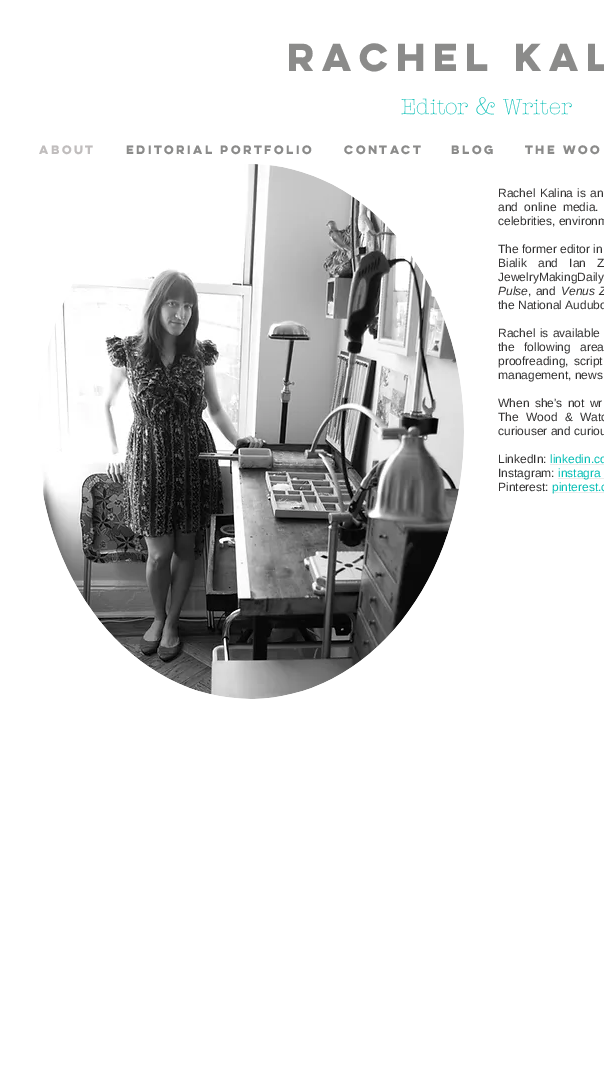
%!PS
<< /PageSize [604 1080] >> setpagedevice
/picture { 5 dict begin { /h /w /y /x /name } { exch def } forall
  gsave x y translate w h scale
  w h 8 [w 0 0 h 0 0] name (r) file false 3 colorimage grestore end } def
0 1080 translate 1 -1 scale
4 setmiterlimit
1 setgray
0 0 604 1080 rectfill
/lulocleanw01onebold-Bold [35 0 0 -35 0 0] selectfont
0.545 0.545 0.541 setrgbcolor
287 71 moveto (Rachel Kal) show
/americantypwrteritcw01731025-Light [22 0 0 -22 0 0] selectfont
0.027 0.749 0.714 setrgbcolor
401 114 moveto (Editor) show
/americantypwrteritcw01731025-Light [24 0 0 -24 0 0] selectfont
475 114 moveto (&) show
/americantypwrteritcw01731025-Light [22 0 0 -22 0 0] selectfont
503 114 moveto (Writer) show
/lulocleanw01onebold-Bold [11 0 0 -11 0 0] selectfont
0.753 0.741 0.741 setrgbcolor
39 154 moveto (About) show
0.545 0.545 0.541 setrgbcolor
126 154 moveto (Editorial Portfolio) show
344 154 moveto (Contact) show
451 154 moveto (Blog) show
525 154 moveto (The Woo) show
(img1.rgb) 38 164 426 535 picture
/LiberationSans-Regular [12 0 0 -12 0 0] selectfont
0.2 0.196 0.196 setrgbcolor
498 197 moveto 1 0 32 (Rachel Kalina is an) widthshow
498 211 moveto 3 0 32 (and online media.) widthshow
498 225 moveto (celebrities, environm) show
498 253 moveto (The former editor in) show
498 267 moveto 8 0 32 (Bialik and Ian Z) widthshow
498 281 moveto 2 0 32 (JewelryMakingDaily) widthshow
/LiberationSans-Italic [12 0 0 -12 0 0] selectfont
498 295 moveto (Pulse) show
/LiberationSans-Regular [12 0 0 -12 0 0] selectfont
528 295 moveto 1 0 32 (, and) widthshow
/LiberationSans-Italic [12 0 0 -12 0 0] selectfont
561 295 moveto 1 0 32 (Venus Z) widthshow
/LiberationSans-Regular [12 0 0 -12 0 0] selectfont
498 309 moveto (the National Audubo) show
498 337 moveto 1 0 32 (Rachel is available) widthshow
498 351 moveto 6 0 32 (the following area) widthshow
498 365 moveto 2 0 32 (proofreading, script) widthshow
498 379 moveto (management, news) show
498 407 moveto 2 0 32 (When she's not wr) widthshow
498 421 moveto 4 0 32 (The Wood & Watc) widthshow
498 435 moveto (curiouser and curiou) show
498 463 moveto (LinkedIn:) show
0.027 0.749 0.714 setrgbcolor
550 463 moveto (linkedin.co) show
0.925 setgray
550 464 54 1 rectfill
0.2 0.196 0.196 setrgbcolor
498 477 moveto (Instagram:) show
0.925 setgray
558 478 46 1 rectfill
0.027 0.749 0.714 setrgbcolor
558 477 moveto (instagra) show
0.2 0.196 0.196 setrgbcolor
498 491 moveto (Pinterest:) show
0.925 setgray
552 492 52 1 rectfill
0.027 0.749 0.714 setrgbcolor
552 491 moveto (pinterest.c) show
showpage
